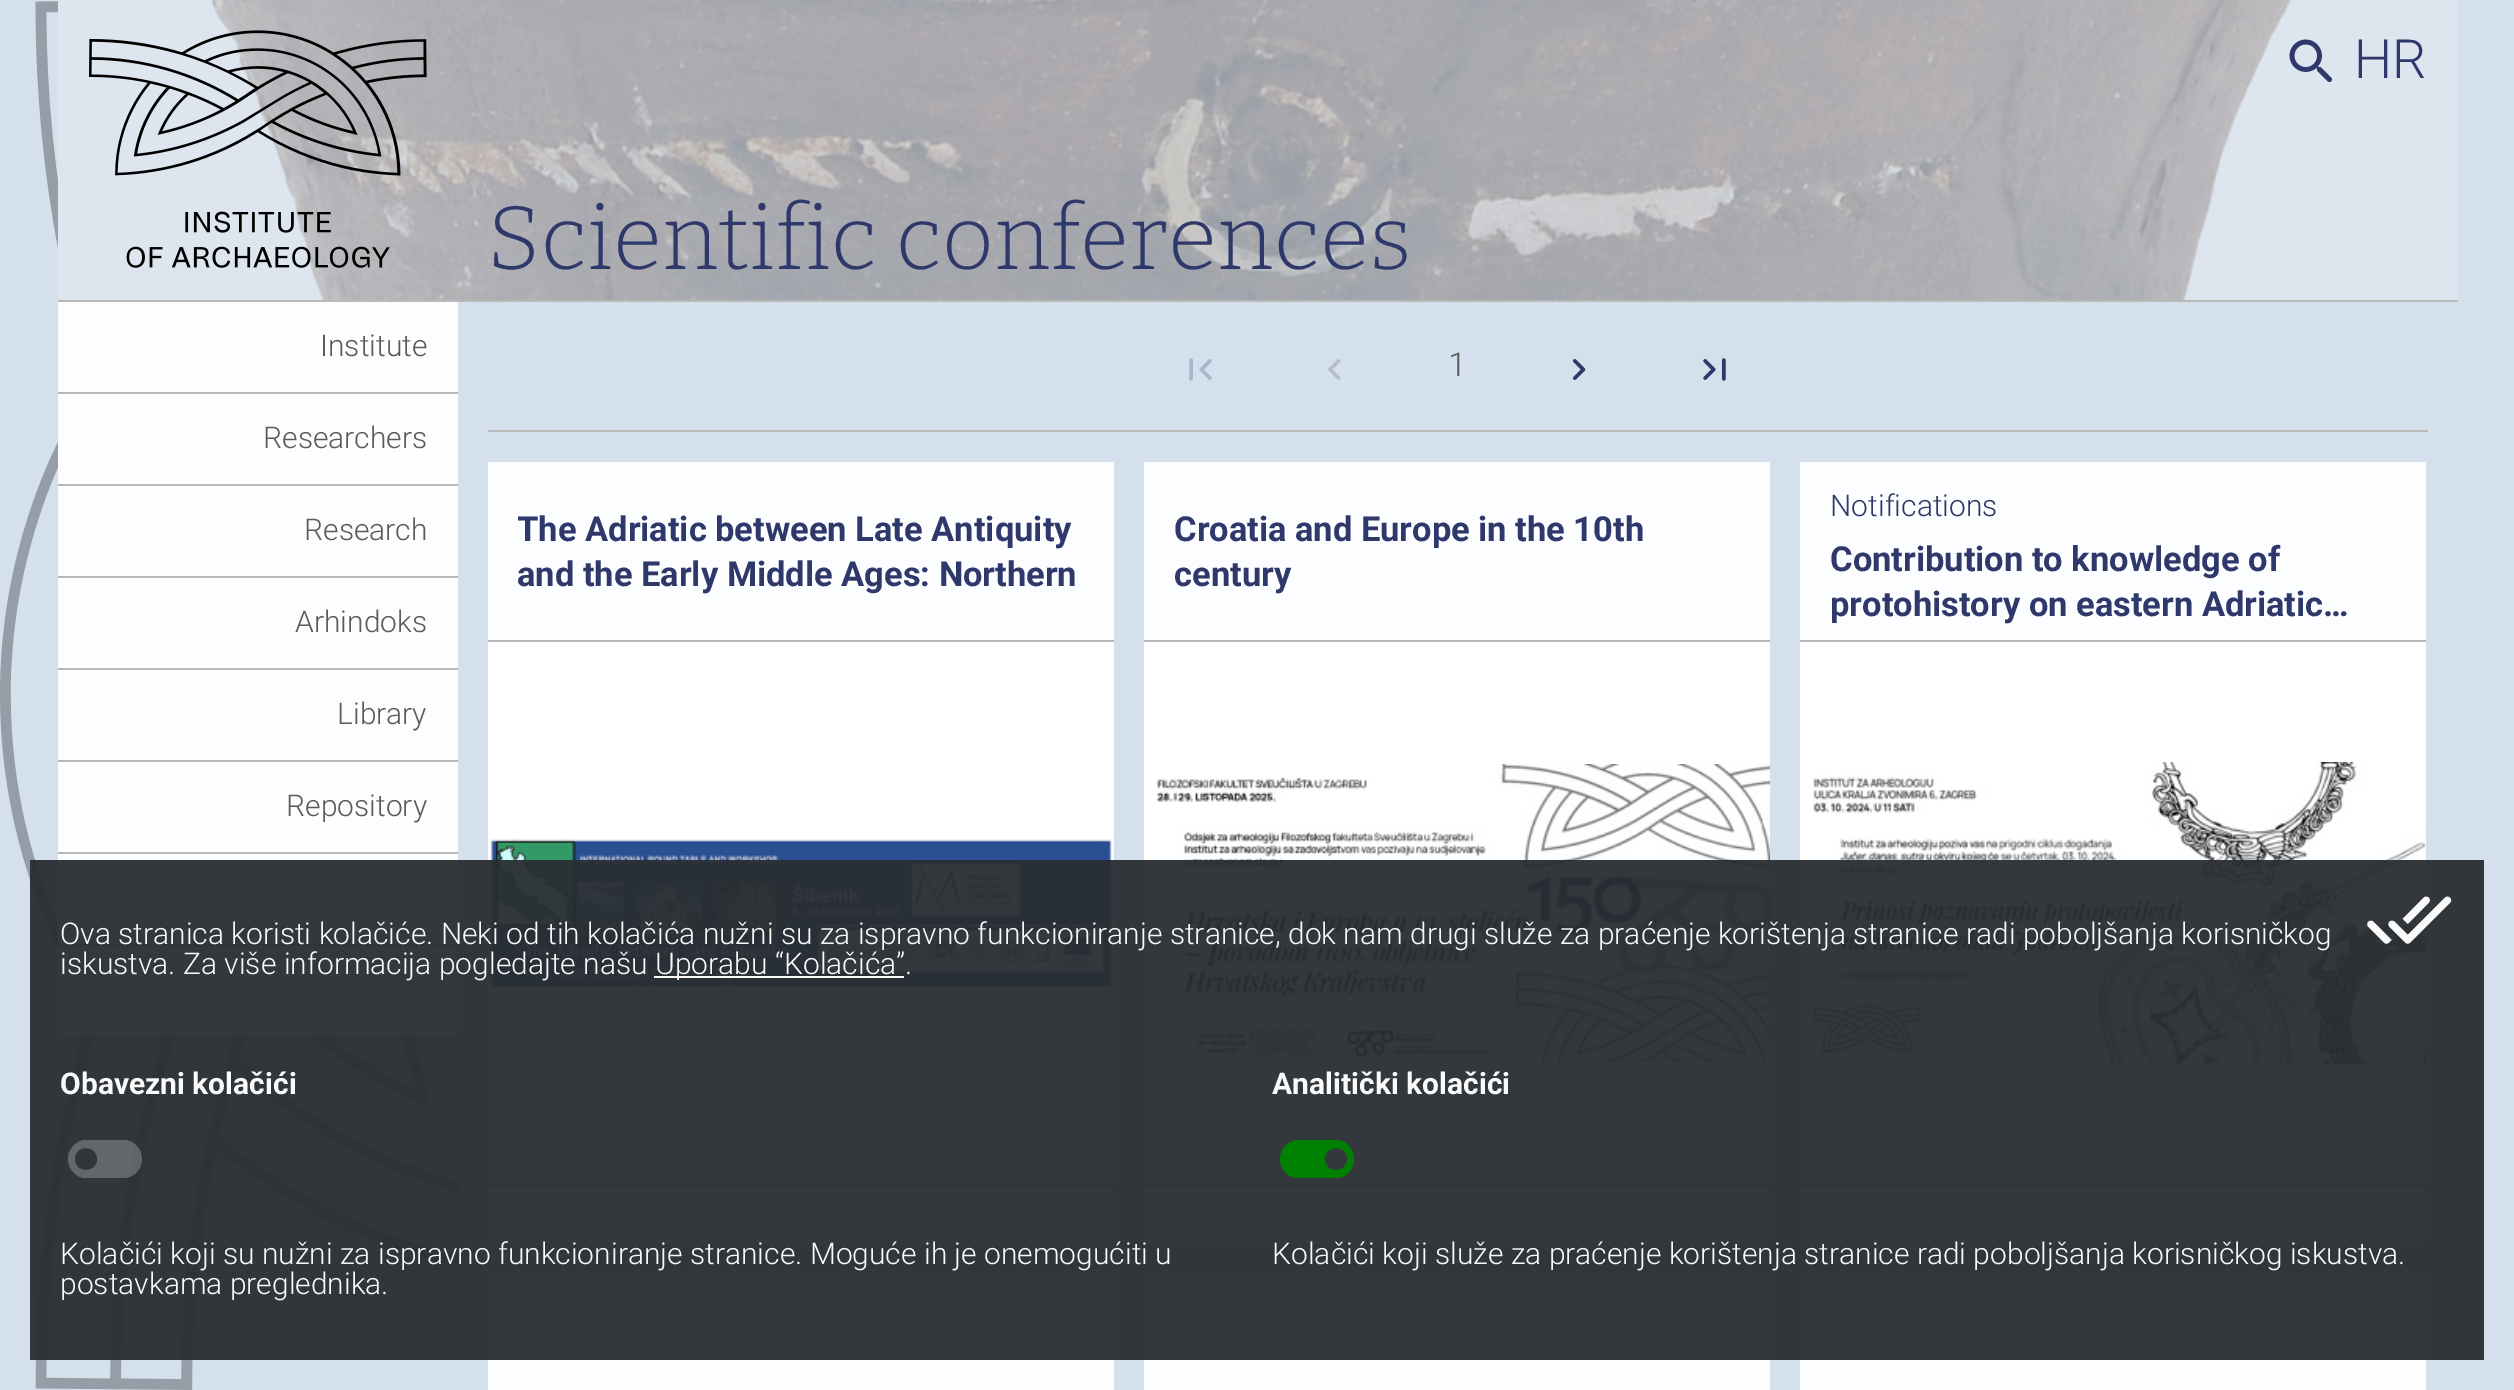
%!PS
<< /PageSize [2514 1390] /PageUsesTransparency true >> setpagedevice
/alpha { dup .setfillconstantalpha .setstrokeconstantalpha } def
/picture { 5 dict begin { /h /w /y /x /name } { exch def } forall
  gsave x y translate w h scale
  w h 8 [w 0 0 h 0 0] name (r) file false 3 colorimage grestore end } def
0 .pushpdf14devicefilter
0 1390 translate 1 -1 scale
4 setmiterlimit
0.831 0.878 0.925 setrgbcolor
0 0 2514 1390 rectfill
(img1.rgb) 0 1 458 1389 picture
58 1 400 299 rectfill
(img2.rgb) 58 0 2400 300 picture
(img3.rgb) 89 30 338 238 picture
(img4.rgb) 2289 39 44 44 picture
/Roboto-Light [54 0 0 -54 0 0] selectfont
0.18 0.22 0.416 setrgbcolor
2354 78 moveto (HR) show
/Bitter-Light [90 0 0 -90 0 0] selectfont
487 269 moveto (Scientific conferences) show
0.984 0.992 1 setrgbcolor
58 302 400 90 rectfill
0.725 setgray
58 392 400 2 rectfill
/Roboto-Light [30 0 0 -30 0 0] selectfont
0.353 setgray
320 356 moveto (Institute) show
0.984 0.992 1 setrgbcolor
58 394 400 90 rectfill
0.725 setgray
58 484 400 2 rectfill
0.353 setgray
263 448 moveto (Researchers) show
0.984 0.992 1 setrgbcolor
58 486 400 90 rectfill
0.725 setgray
58 576 400 2 rectfill
0.353 setgray
304 540 moveto (Research) show
0.984 0.992 1 setrgbcolor
58 578 400 90 rectfill
0.725 setgray
58 668 400 2 rectfill
0.353 setgray
295 632 moveto (Arhindoks) show
0.984 0.992 1 setrgbcolor
58 670 400 90 rectfill
0.725 setgray
58 760 400 2 rectfill
0.353 setgray
337 724 moveto (Library) show
0.984 0.992 1 setrgbcolor
58 762 400 90 rectfill
0.725 setgray
58 852 400 2 rectfill
0.353 setgray
286 816 moveto (Repository) show
0.984 0.992 1 setrgbcolor
58 854 400 90 rectfill
0.725 setgray
58 944 400 2 rectfill
0.984 0.992 1 setrgbcolor
58 946 400 90 rectfill
0.725 setgray
58 1036 400 2 rectfill
58 300 2400 2 rectfill
488 430 1940 2 rectfill
(img5.rgb) 1189 358 23 23 picture
(img6.rgb) 1328 359 13 21 picture
/Roboto-Light [33 0 0 -33 0 0] selectfont
0.353 setgray
1448 376 moveto (1) show
(img7.rgb) 1572 359 14 21 picture
(img8.rgb) 1703 358 23 23 picture
0.984 0.992 1 setrgbcolor
488 462 626 178 rectfill
0.725 setgray
488 640 626 2 rectfill
gsave
518 506 566 90 rectclip
/Roboto-Bold [34.5 0 0 -34.5 0 0] selectfont
0.18 0.22 0.416 setrgbcolor
517 541 moveto (The Adriatic between Late Antiquity) show
grestore
/Roboto-Bold [34.5 0 0 -34.5 0 0] selectfont
0.18 0.22 0.416 setrgbcolor
517 586 moveto (and the Early Middle Ages: Northern) show
1 setgray
488 642 626 542 rectfill
(img9.rgb) 488 838 626 150 picture
0.984 0.992 1 setrgbcolor
488 1186 626 58 rectfill
0.725 setgray
488 1184 626 2 rectfill
0.984 0.992 1 setrgbcolor
1144 462 626 178 rectfill
0.725 setgray
1144 640 626 2 rectfill
0.18 0.22 0.416 setrgbcolor
1174 541 moveto (Croatia and Europe in the 10th) show
1174 586 moveto (century) show
1 setgray
1144 642 626 542 rectfill
(img10.rgb) 1156 764 614 298 picture
0.984 0.992 1 setrgbcolor
1144 1186 626 58 rectfill
0.725 setgray
1144 1184 626 2 rectfill
0.984 0.992 1 setrgbcolor
1800 462 626 178 rectfill
0.725 setgray
1800 640 626 2 rectfill
/Roboto-Light [30 0 0 -30 0 0] selectfont
0.18 0.22 0.416 setrgbcolor
1830 516 moveto (Notifications) show
/Roboto-Bold [34.5 0 0 -34.5 0 0] selectfont
1830 571 moveto (Contribution to knowledge of) show
1830 616 moveto (protohistory on eastern Adriatic…) show
1 setgray
1800 642 626 542 rectfill
(img11.rgb) 1812 762 614 302 picture
0.984 0.992 1 setrgbcolor
1800 1186 626 58 rectfill
0.725 setgray
1800 1184 626 2 rectfill
0.984 0.992 1 setrgbcolor
488 1274 626 116 rectfill
1144 1274 626 116 rectfill
1800 1274 626 116 rectfill
0.95 alpha
0.157 0.176 0.196 setrgbcolor
30 860 2454 500 rectfill
/Roboto-Light [30 0 0 -30 0 0] selectfont
1 alpha
0.98 setgray
60 944 moveto (Ova stranica koristi kolačiće. Neki od tih kolačića nužni su za ispravno funkcioniranje stranice, dok nam drugi služe za praćenje korištenja stranice radi poboljšanja korisničkog) show
60 974 moveto (iskustva. Za više informacija pogledajte našu) show
654 976 250 2 rectfill
655 974 moveto (Uporabu “Kolačića”.) show
(img12.rgb) 2367 896 85 48 picture
/Roboto-Bold [30 0 0 -30 0 0] selectfont
60 1094 moveto (Obavezni kolačići) show
0.25 alpha
newpath 124 1140 moveto 86 1140 lineto 76 1140 68 1149 68 1159 curveto 68 1169 76 1178 86 1178 curveto 124 1178 lineto 134 1178 142 1169 142 1159 curveto 142 1149 134 1140 124 1140 curveto closepath 86 1170 moveto 71 1170 71 1148 86 1148 curveto 101 1148 101 1170 86 1170 curveto closepath fill
/Roboto-Light [30 0 0 -30 0 0] selectfont
1 alpha
60 1264 moveto (Kolačići koji su nužni za ispravno funkcioniranje stranice. Moguće ih je onemogućiti u) show
60 1294 moveto (postavkama preglednika.) show
/Roboto-Bold [30 0 0 -30 0 0] selectfont
1272 1094 moveto (Analitički kolačići) show
0 0.502 0 setrgbcolor
newpath 1336 1140 moveto 1298 1140 lineto 1288 1140 1280 1149 1280 1159 curveto 1280 1169 1288 1178 1298 1178 curveto 1336 1178 lineto 1346 1178 1354 1169 1354 1159 curveto 1354 1149 1346 1140 1336 1140 curveto closepath 1336 1170 moveto 1321 1170 1321 1148 1336 1148 curveto 1351 1148 1351 1170 1336 1170 curveto closepath fill
/Roboto-Light [30 0 0 -30 0 0] selectfont
0.98 setgray
1272 1264 moveto (Kolačići koji služe za praćenje korištenja stranice radi poboljšanja korisničkog iskustva.) show
.poppdf14devicefilter showpage
